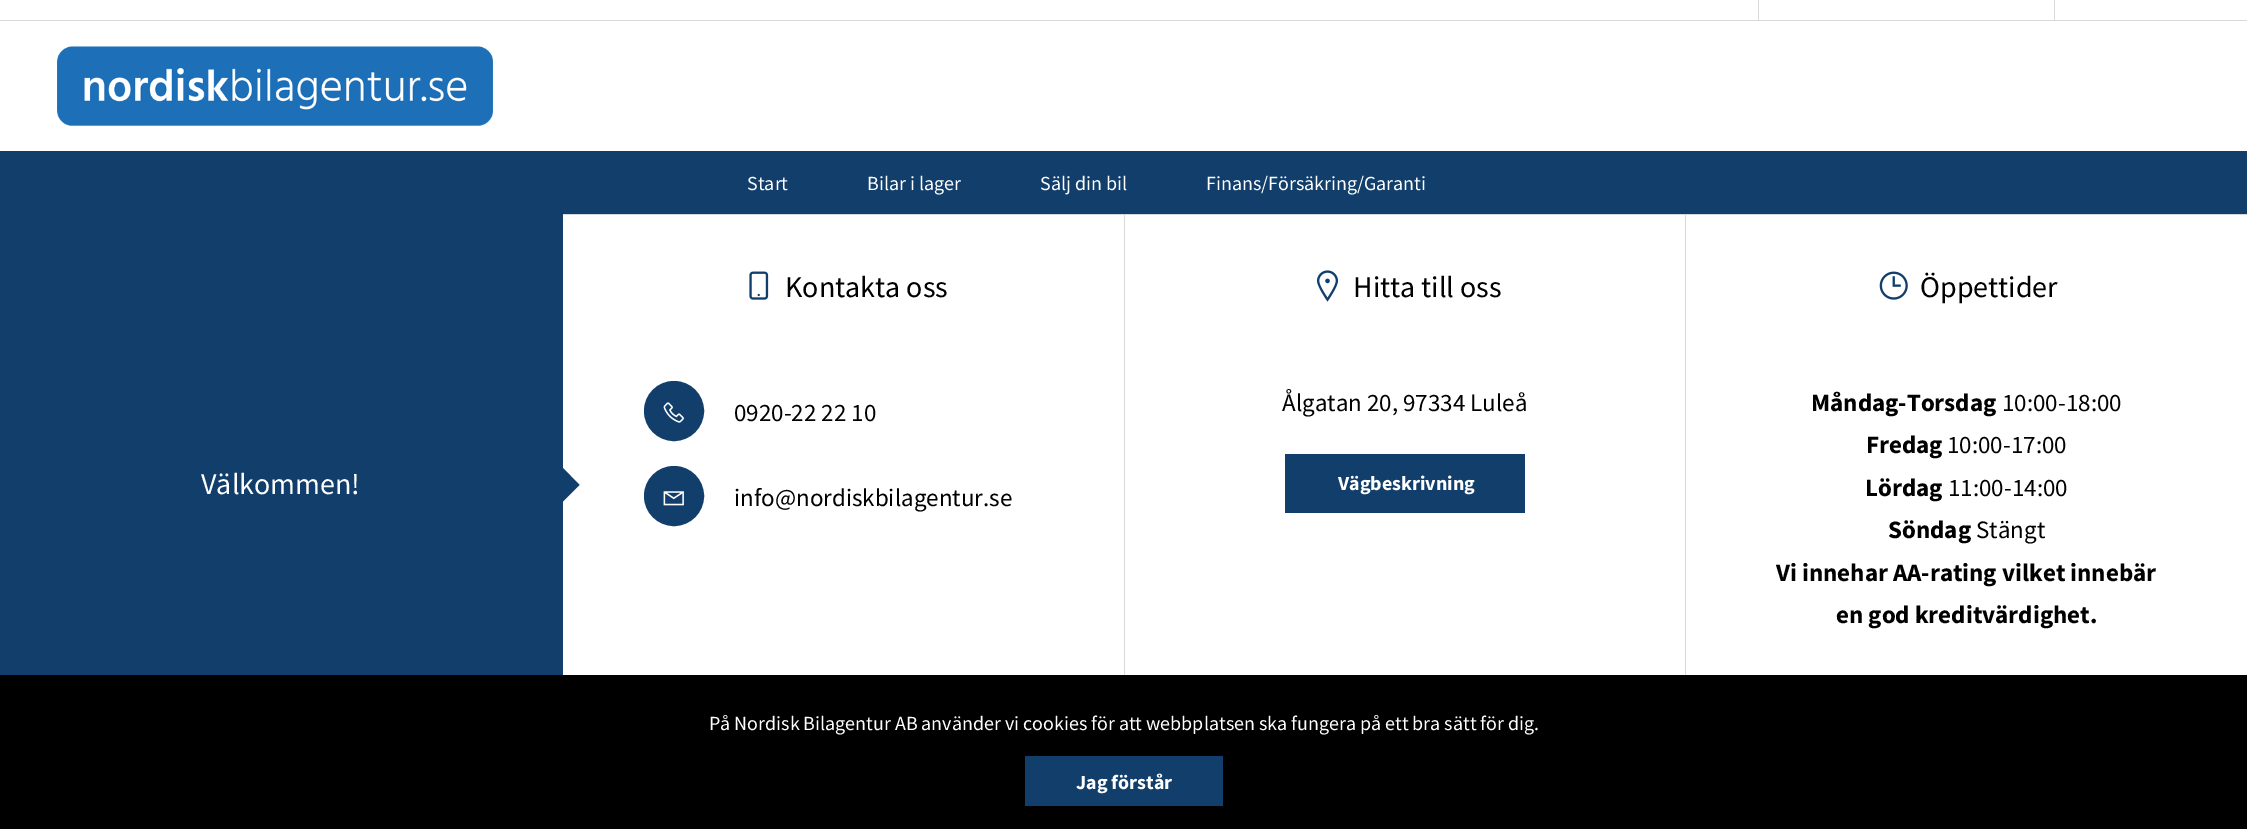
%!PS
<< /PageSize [2247 829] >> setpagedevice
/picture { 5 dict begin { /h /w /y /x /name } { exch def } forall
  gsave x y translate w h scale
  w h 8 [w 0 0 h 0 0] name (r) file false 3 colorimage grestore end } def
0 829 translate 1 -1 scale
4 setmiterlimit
1 setgray
0 0 2247 829 rectfill
0.847 setgray
0 20 2247 1 rectfill
1758 0 1 20 rectfill
2054 0 1 20 rectfill
(img1.rgb) 57 46 436 80 picture
0.067 0.243 0.416 setrgbcolor
0 151 2247 63 rectfill
/SourceSansPro-Regular [20 0 0 -20 0 0] selectfont
1 setgray
747 190 moveto (Start) show
867 190 moveto (Bilar i lager) show
1040 190 moveto (Sälj din bil) show
1206 190 moveto (Finans/Försäkring/Garanti) show
0.067 0.243 0.416 setrgbcolor
0 214 563 461 rectfill
/SourceSansPro-Regular [30 0 0 -30 0 0] selectfont
1 setgray
201 494 moveto (Välkommen!) show
0.067 0.243 0.416 setrgbcolor
newpath 562 502.5 moveto 544 485 lineto 562 467 lineto 579.5 485 lineto closepath fill
0.847 setgray
563 214 1684 1 rectfill
1124 215 1 460 rectfill
1685 215 1 460 rectfill
(img2.rgb) 749 271 20 29 picture
0 setgray
785 297 moveto (Kontakta oss) show
0.067 0.243 0.416 setrgbcolor
newpath 674 411 28.5 0 360 arc closepath gsave fill grestore
3 setlinewidth
stroke
(img3.rgb) 663 402 21 21 picture
/SourceSansPro-Regular [25 0 0 -25 0 0] selectfont
0 setgray
734 421 moveto (0920-22 22 10) show
0.067 0.243 0.416 setrgbcolor
newpath 674 496 28.5 0 360 arc closepath gsave fill grestore
stroke
(img4.rgb) 663 491 21 15 picture
0 setgray
734 506 moveto (info@nordiskbilagentur.se) show
(img5.rgb) 1317 270 21 32 picture
/SourceSansPro-Regular [30 0 0 -30 0 0] selectfont
1353 297 moveto (Hitta till oss) show
/SourceSansPro-Regular [25 0 0 -25 0 0] selectfont
1282 411 moveto (Ålgatan 20, 97334 Luleå) show
0.067 0.243 0.416 setrgbcolor
1285 454 240 59 rectfill
/SourceSansPro-Bold [20 0 0 -20 0 0] selectfont
1 setgray
1338 490 moveto (Vägbeskrivning) show
(img6.rgb) 1879 271 29 29 picture
/SourceSansPro-Regular [30 0 0 -30 0 0] selectfont
0 setgray
1920 297 moveto (Öppettider) show
/SourceSansPro-Bold [25 0 0 -25 0 0] selectfont
1811 411 moveto (Måndag-Torsdag) show
/SourceSansPro-Regular [25 0 0 -25 0 0] selectfont
2002 411 moveto (10:00-18:00) show
/SourceSansPro-Bold [25 0 0 -25 0 0] selectfont
1866 453 moveto (Fredag) show
/SourceSansPro-Regular [25 0 0 -25 0 0] selectfont
1947 453 moveto (10:00-17:00) show
/SourceSansPro-Bold [25 0 0 -25 0 0] selectfont
1865 496 moveto (Lördag) show
/SourceSansPro-Regular [25 0 0 -25 0 0] selectfont
1948 496 moveto (11:00-14:00) show
/SourceSansPro-Bold [25 0 0 -25 0 0] selectfont
1888 538 moveto (Söndag) show
/SourceSansPro-Regular [25 0 0 -25 0 0] selectfont
1976 538 moveto (Stängt) show
/SourceSansPro-Bold [25 0 0 -25 0 0] selectfont
1776 581 moveto (Vi innehar AA-rating vilket innebär) show
1836 623 moveto (en god kreditvärdighet.) show
0 675 2247 154 rectfill
/SourceSansPro-Regular [20 0 0 -20 0 0] selectfont
1 setgray
709 730 moveto (På Nordisk Bilagentur AB använder vi cookies för att webbplatsen ska fungera på ett bra sätt för dig.) show
0.067 0.243 0.416 setrgbcolor
1025 756 198 50 rectfill
/SourceSansPro-Bold [20 0 0 -20 0 0] selectfont
1 setgray
1076 789 moveto (Jag förstår) show
showpage
